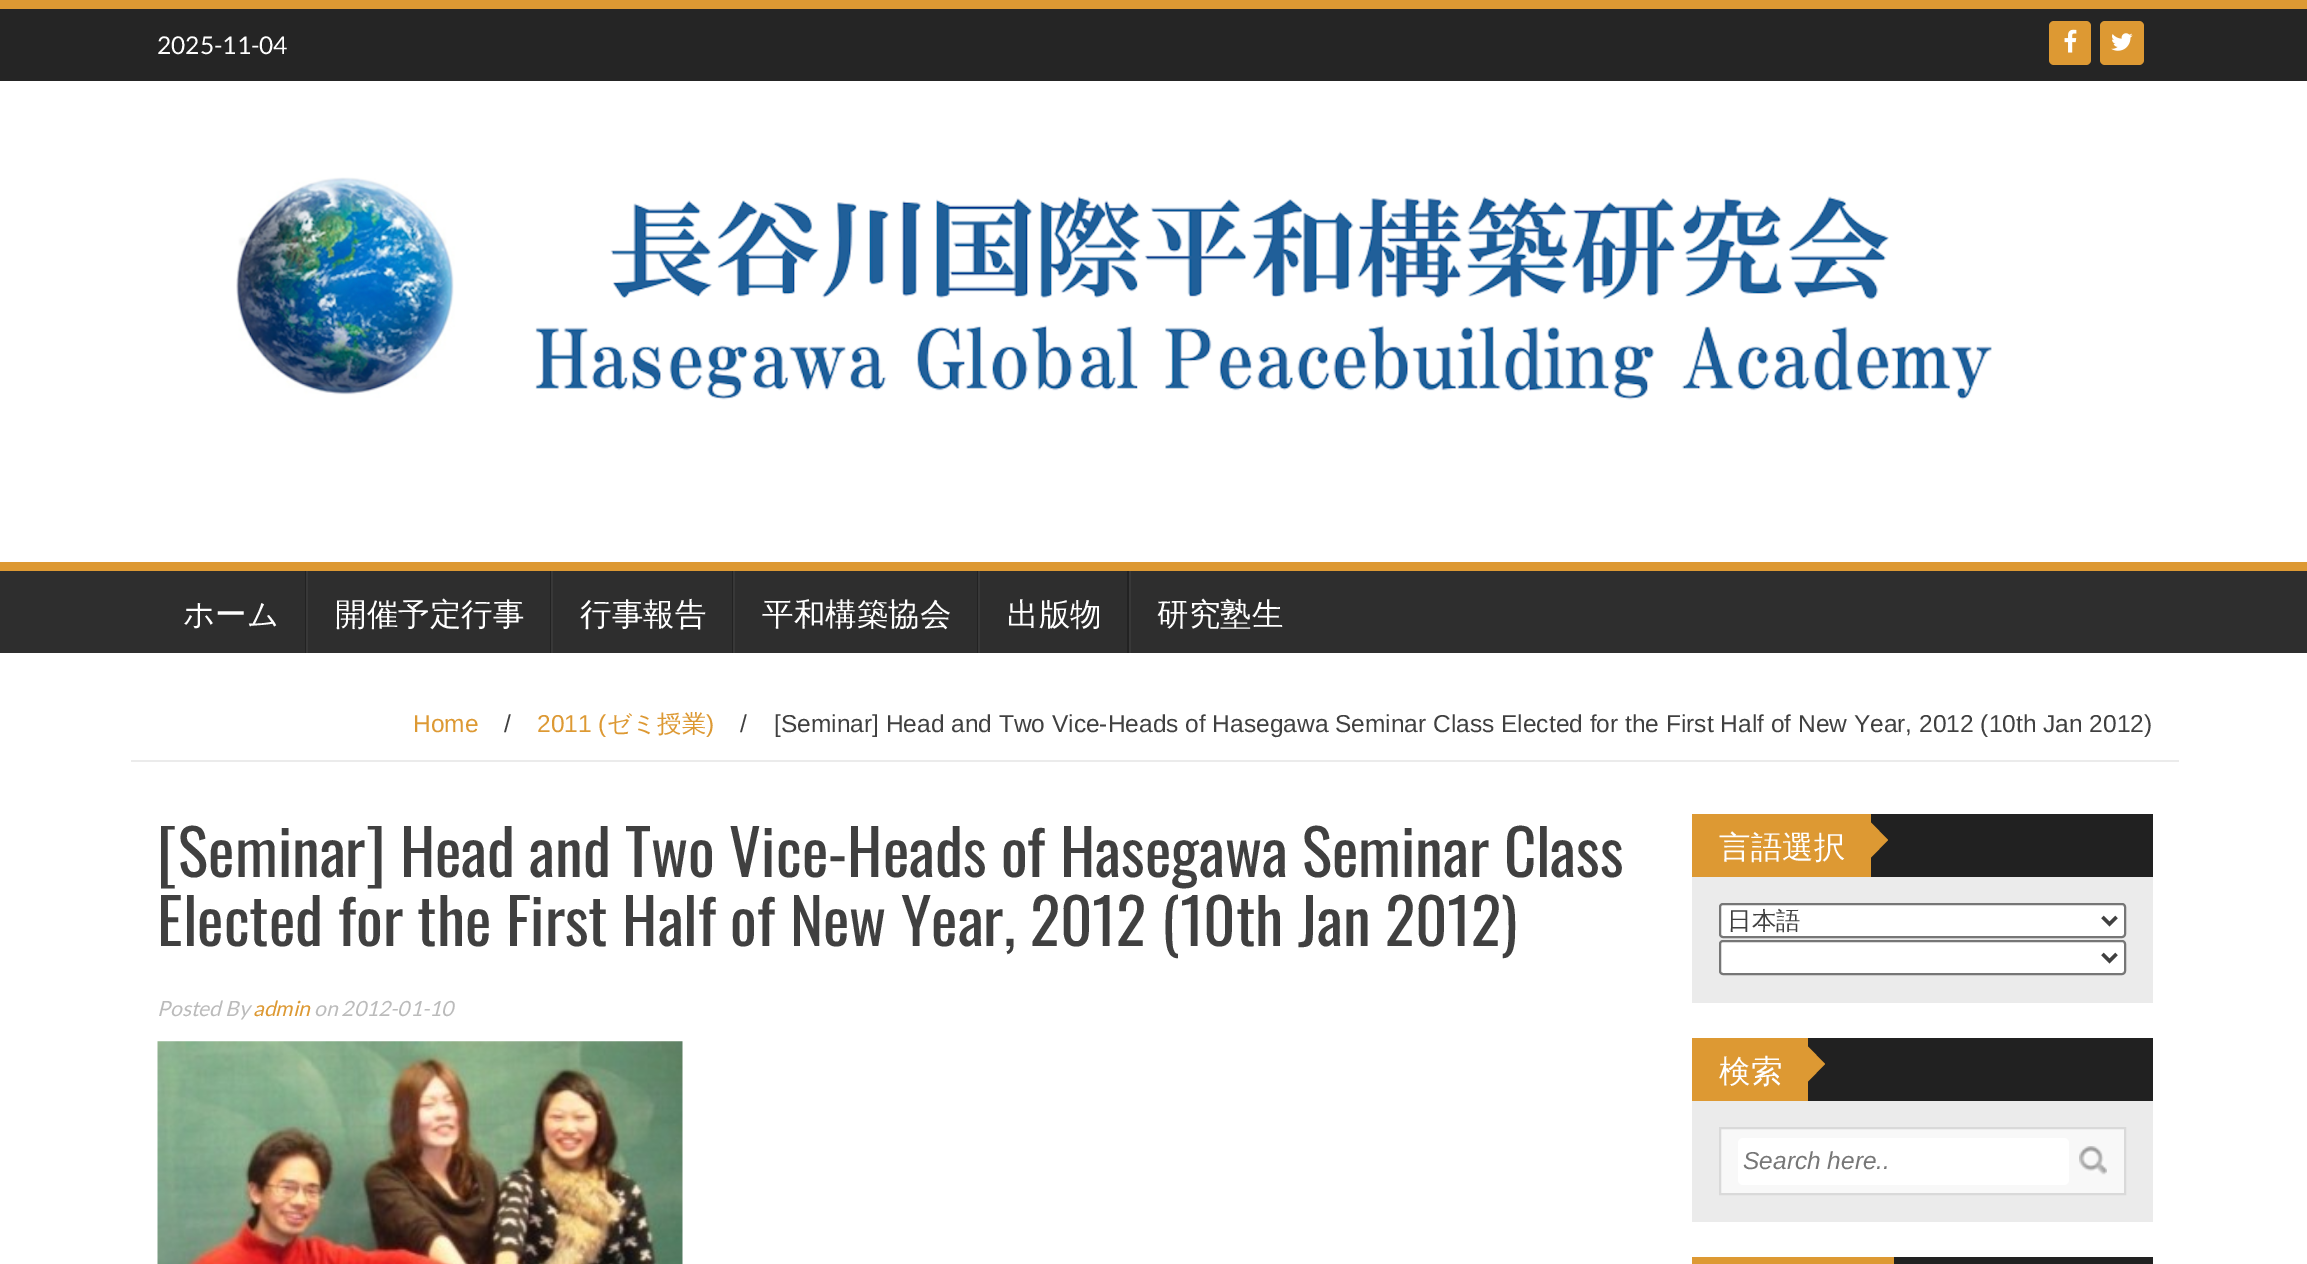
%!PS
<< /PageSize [2307 1264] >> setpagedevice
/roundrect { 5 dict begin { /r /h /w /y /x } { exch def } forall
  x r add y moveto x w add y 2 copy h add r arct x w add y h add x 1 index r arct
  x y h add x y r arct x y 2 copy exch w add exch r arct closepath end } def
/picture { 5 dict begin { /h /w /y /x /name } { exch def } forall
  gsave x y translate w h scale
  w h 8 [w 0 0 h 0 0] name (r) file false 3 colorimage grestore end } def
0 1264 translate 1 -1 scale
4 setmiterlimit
1 setgray
0 0 2307 1264 rectfill
0.145 setgray
0 9 2307 72 rectfill
0.867 0.6 0.2 setrgbcolor
0 0 2307 9 rectfill
/Lato-Regular [24.5 0 0 -24.5 0 0] selectfont
1 setgray
157 54 moveto (2025-11-04) show
0.867 0.6 0.2 setrgbcolor
2049 21 42 44 5 roundrect fill
(img1.rgb) 2064 29 13 24 picture
2100 21 44 44 5 roundrect fill
(img2.rgb) 2111 33 22 18 picture
(img3.rgb) 236 177 1756 223 picture
0.18 setgray
0 571 2307 82 rectfill
0.867 0.6 0.2 setrgbcolor
0 562 2307 9 rectfill
0.133 setgray
305 571 1 82 rectfill
/WenQuanYiZenHei-Medium [31.5 0 0 -31.5 0 0] selectfont
1 setgray
183 625 moveto (ホーム) show
0.133 setgray
550 571 1 82 rectfill
0.22 setgray
306 571 2 82 rectfill
1 setgray
335 625 moveto (開催予定行事) show
0.133 setgray
732 571 1 82 rectfill
0.22 setgray
551 571 2 82 rectfill
1 setgray
580 625 moveto (行事報告) show
0.133 setgray
977 571 1 82 rectfill
0.22 setgray
733 571 2 82 rectfill
1 setgray
762 625 moveto (平和構築協会) show
0.133 setgray
1127 571 2 82 rectfill
0.22 setgray
978 571 2 82 rectfill
1 setgray
1007 625 moveto (出版物) show
0.22 setgray
1129 571 2 82 rectfill
1 setgray
1157 625 moveto (研究塾生) show
0.922 setgray
131 760 2048 2 rectfill
/LiberationSans-Regular [24.5 0 0 -24.5 0 0] selectfont
0.867 0.6 0.2 setrgbcolor
413 732 moveto (Home) show
0.251 setgray
504 732 moveto (/) show
0.867 0.6 0.2 setrgbcolor
537 732 moveto (2011 \() show
/WenQuanYiZenHei-Medium [24.5 0 0 -24.5 0 0] selectfont
607 732 moveto (ゼミ授業) show
/LiberationSans-Regular [24.5 0 0 -24.5 0 0] selectfont
706 732 moveto (\)) show
0.251 setgray
740 732 moveto (/) show
774 732 moveto ([Seminar] Head and Two Vice-Heads of Hasegawa Seminar Class Elected for the First Half of New Year, 2012 \(10th Jan 2012\)) show
/Oswald-Regular [63 0 0 -63 0 0] selectfont
157 877 moveto ([Seminar] Head and Two Vice-Heads of Hasegawa Seminar Class) show
157 946 moveto (Elected for the First Half of New Year, 2012 \(10th Jan 2012\)) show
/Lato-Italic [21 0 0 -21 0 0] selectfont
0.733 setgray
157 1016 moveto (Posted By) show
0.867 0.6 0.2 setrgbcolor
253 1016 moveto (admin) show
0.733 setgray
314 1016 moveto (on 2012-01-10) show
(img4.rgb) 157 1041 526 223 picture
0.922 setgray
1692 877 461 126 rectfill
0.129 setgray
1871 814 282 63 rectfill
0.867 0.6 0.2 setrgbcolor
1692 814 179 63 rectfill
/WenQuanYiZenHei-Medium [31.5 0 0 -31.5 0 0] selectfont
1 setgray
1719 858 moveto (言語選択) show
0.867 0.6 0.2 setrgbcolor
newpath 1871 857.5 moveto 1871 822.5 lineto 1888 840 lineto closepath fill
1 setgray
1720 904 405 33 3 roundrect gsave fill grestore
0.463 setgray
2 setlinewidth
stroke
0.251 setgray
3.5 setlinewidth
newpath 2102.5 917 moveto 2109.5 924 lineto 2116.5 917 lineto stroke
/WenQuanYiZenHei-Medium [24.5 0 0 -24.5 0 0] selectfont
1727 929 moveto (日本語) show
1 setgray
1720 941 405 33 3 roundrect gsave fill grestore
0.463 setgray
2 setlinewidth
stroke
0.251 setgray
3.5 setlinewidth
newpath 2102.5 954 moveto 2109.5 961 lineto 2116.5 954 lineto stroke
0.922 setgray
1692 1101 461 121 rectfill
0.129 setgray
1808 1038 345 63 rectfill
0.867 0.6 0.2 setrgbcolor
1692 1038 116 63 rectfill
/WenQuanYiZenHei-Medium [31.5 0 0 -31.5 0 0] selectfont
1 setgray
1719 1082 moveto (検索) show
0.867 0.6 0.2 setrgbcolor
newpath 1808 1081.5 moveto 1808 1046.5 lineto 1825 1064 lineto closepath fill
0.973 setgray
newpath 1720 1128 moveto 2125 1128 lineto 2125 1194 lineto 1720 1194 lineto closepath gsave fill grestore
0.851 setgray
2 setlinewidth
stroke
1 setgray
1738 1138 331 47 5 roundrect fill
/LiberationSans-Italic [24.5 0 0 -24.5 0 0] selectfont
0.467 setgray
1743 1169 moveto (Search here..) show
(img5.rgb) 2079 1146 28 29 picture
0.129 setgray
1894 1257 259 7 rectfill
0.867 0.6 0.2 setrgbcolor
1692 1257 202 7 rectfill
showpage
